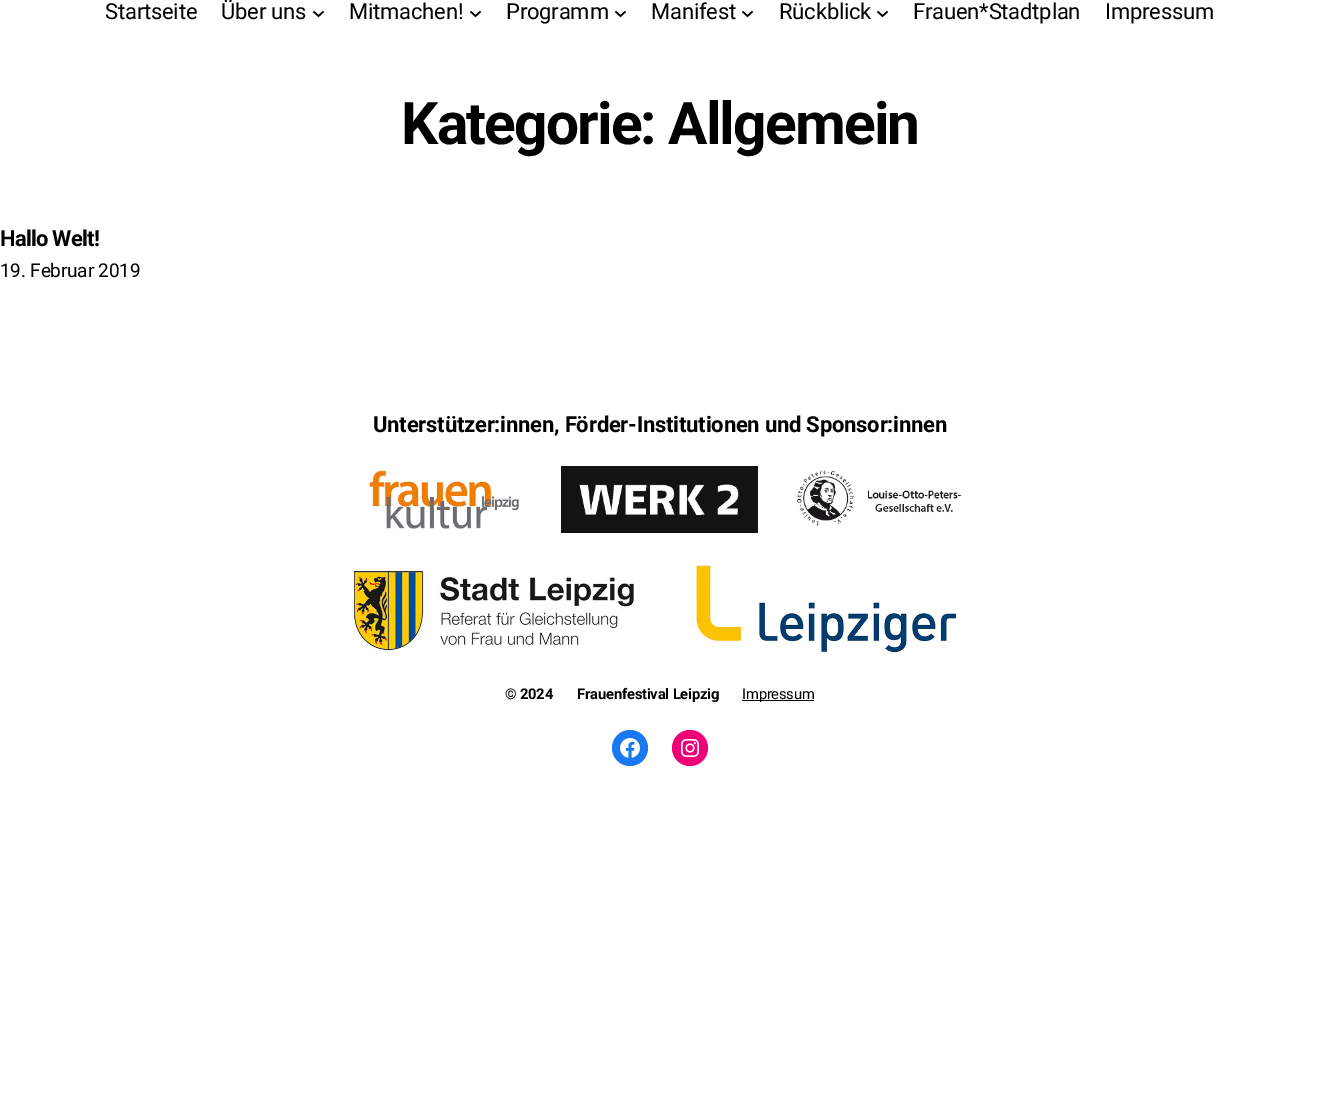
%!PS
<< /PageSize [1319 1096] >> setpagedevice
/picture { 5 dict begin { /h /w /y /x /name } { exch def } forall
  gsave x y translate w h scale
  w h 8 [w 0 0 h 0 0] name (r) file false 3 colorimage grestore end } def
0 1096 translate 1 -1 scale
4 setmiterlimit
1 setgray
0 0 1319 1096 rectfill
/Roboto-Regular [22 0 0 -22 0 0] selectfont
0 setgray
105 19 moveto -0.2 0 (Startseite) ashow
221 19 moveto -0.2 0 (Über uns) ashow
1.6 setlinewidth
newpath 313.5 11.5 moveto 318.5 16 lineto 323.5 11.5 lineto stroke
349 19 moveto -0.2 0 (Mitmachen!) ashow
newpath 470.5 11.5 moveto 475.5 16 lineto 480.5 11.5 lineto stroke
506 19 moveto -0.2 0 (Programm) ashow
newpath 615.5 11.5 moveto 620.5 16 lineto 625.5 11.5 lineto stroke
651 19 moveto -0.2 0 (Manifest) ashow
newpath 742.5 11.5 moveto 747.5 16 lineto 752.5 11.5 lineto stroke
779 19 moveto -0.2 0 (Rückblick) ashow
newpath 877.5 11.5 moveto 882.5 16 lineto 887.5 11.5 lineto stroke
913 19 moveto -0.2 0 (Frauen*Stadtplan) ashow
1105 19 moveto -0.2 0 (Impressum) ashow
/Roboto-Bold [58.6 0 0 -58.6 0 0] selectfont
401 144 moveto -1.75 0 (Kategorie: Allgemein) ashow
/Roboto-Bold [22 0 0 -22 0 0] selectfont
0 246 moveto -0.75 0 (Hallo Welt!) ashow
/Roboto-Regular [19 0 0 -19 0 0] selectfont
0 277 moveto -0.2 0 (19. Februar 2019) ashow
/Roboto-Bold [22 0 0 -22 0 0] selectfont
373 432 moveto -0.2 0 (Unterstützer:innen, Förder-Institutionen und Sponsor:innen) ashow
(img1.rgb) 369 469 150 60 picture
(img2.rgb) 561 466 197 67 picture
(img3.rgb) 797 470 165 56 picture
(img4.rgb) 352 569 283 82 picture
(img5.rgb) 696 565 262 90 picture
/Roboto-Bold [14.75 0 0 -14.75 0 0] selectfont
505 699 moveto -0.2 0 (© 2024) ashow
577 699 moveto -0.2 0 (Frauenfestival Leipzig) ashow
742 700 72 1 rectfill
/Roboto-Regular [14.75 0 0 -14.75 0 0] selectfont
742 699 moveto -0.2 0 (Impressum) ashow
0.09 0.471 0.949 setrgbcolor
newpath 630 748 18 0 360 arc closepath fill
(img6.rgb) 620 738 20 20 picture
0.941 0 0.459 setrgbcolor
newpath 690 748 18 0 360 arc closepath fill
(img7.rgb) 681 739 18 18 picture
showpage
